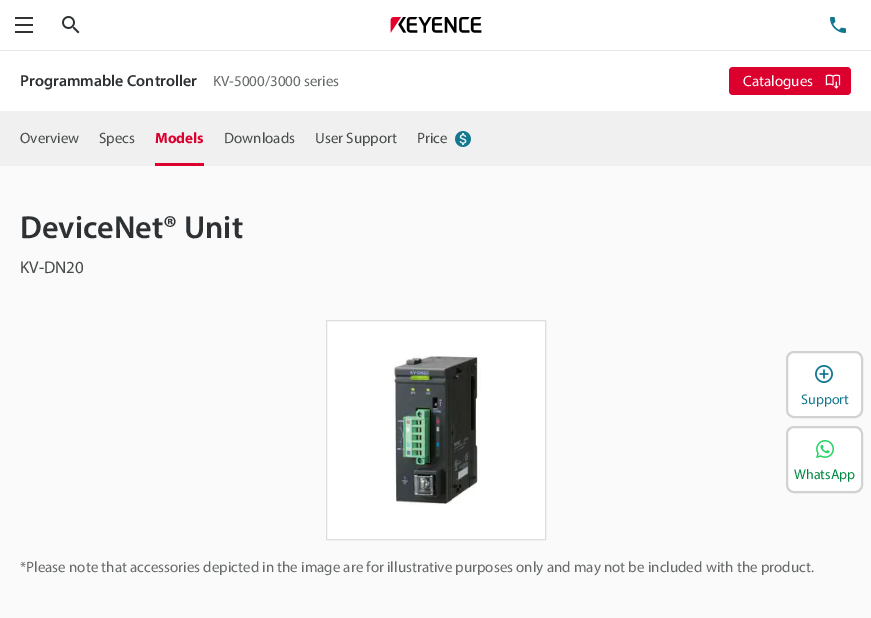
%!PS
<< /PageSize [871 618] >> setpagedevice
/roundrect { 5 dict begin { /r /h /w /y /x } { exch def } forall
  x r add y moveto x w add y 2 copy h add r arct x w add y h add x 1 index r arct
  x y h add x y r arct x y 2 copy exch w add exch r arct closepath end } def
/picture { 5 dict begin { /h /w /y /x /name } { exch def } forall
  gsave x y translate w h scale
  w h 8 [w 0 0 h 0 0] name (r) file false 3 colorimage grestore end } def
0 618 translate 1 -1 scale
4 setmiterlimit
0.98 setgray
0 0 871 618 rectfill
1 setgray
0 0 871 50 rectfill
(img1.rgb) 62 16 18 18 picture
0.902 setgray
0 50 871 1 rectfill
(img2.rgb) 390 17 92 16 picture
0.188 0.196 0.2 setrgbcolor
15 17 18 2 rectfill
15 24 18 2 rectfill
15 31 18 2 rectfill
(img3.rgb) 830 17 16 16 picture
1 setgray
0 51 871 60 rectfill
/Myriad-SemiBold [16 0 0 -16 0 0] selectfont
0.18 0.192 0.2 setrgbcolor
20 86 moveto (Programmable Controller) show
/Myriad-Regular [15 0 0 -15 0 0] selectfont
0.4 0.416 0.42 setrgbcolor
213 86 moveto (KV-5000/3000 series) show
0.863 0 0.184 setrgbcolor
729 67 122 28 4 roundrect fill
1 setgray
743 86 moveto (Catalogues) show
(img4.rgb) 825 74 16 15 picture
0.941 setgray
0 111 871 55 rectfill
0.282 0.294 0.298 setrgbcolor
20 143 moveto (Overview) show
99 143 moveto (Specs) show
0.863 0 0.184 setrgbcolor
155 163 49 3 rectfill
/Myriad-Bold [15 0 0 -15 0 0] selectfont
155 143 moveto (Models) show
/Myriad-Regular [15 0 0 -15 0 0] selectfont
0.282 0.294 0.298 setrgbcolor
224 143 moveto (Downloads) show
315 143 moveto (User Support) show
417 143 moveto (Price) show
(img5.rgb) 455 131 16 16 picture
/Myriad-SemiBold [32 0 0 -32 0 0] selectfont
0.18 0.192 0.2 setrgbcolor
20 238 moveto (DeviceNet® Unit) show
/Myriad-Regular [17 0 0 -17 0 0] selectfont
0.282 0.294 0.298 setrgbcolor
20 273 moveto (KV-DN20) show
1 setgray
newpath 326.5 320.5 moveto 545.5 320.5 lineto 545.5 539.5 lineto 326.5 539.5 lineto closepath gsave fill grestore
0.867 setgray
stroke
(img6.rgb) 392 355 89 150 picture
/Myriad-Regular [15 0 0 -15 0 0] selectfont
0.4 0.416 0.42 setrgbcolor
20 572 moveto (*Please note that accessories depicted in the image are for illustrative purposes only and may not be included with the product.) show
1 setgray
787 352 75 65 7 roundrect gsave fill grestore
0.824 setgray
2 setlinewidth
stroke
(img7.rgb) 815 365 18 18 picture
/Myriad-Regular [14 0 0 -14 0 0] selectfont
0.075 0.467 0.561 setrgbcolor
801 404 moveto (Support) show
1 setgray
787 427 75 65 7 roundrect gsave fill grestore
0.824 setgray
stroke
(img8.rgb) 816 440 18 18 picture
0 0.533 0.255 setrgbcolor
794 479 moveto (WhatsApp) show
showpage
